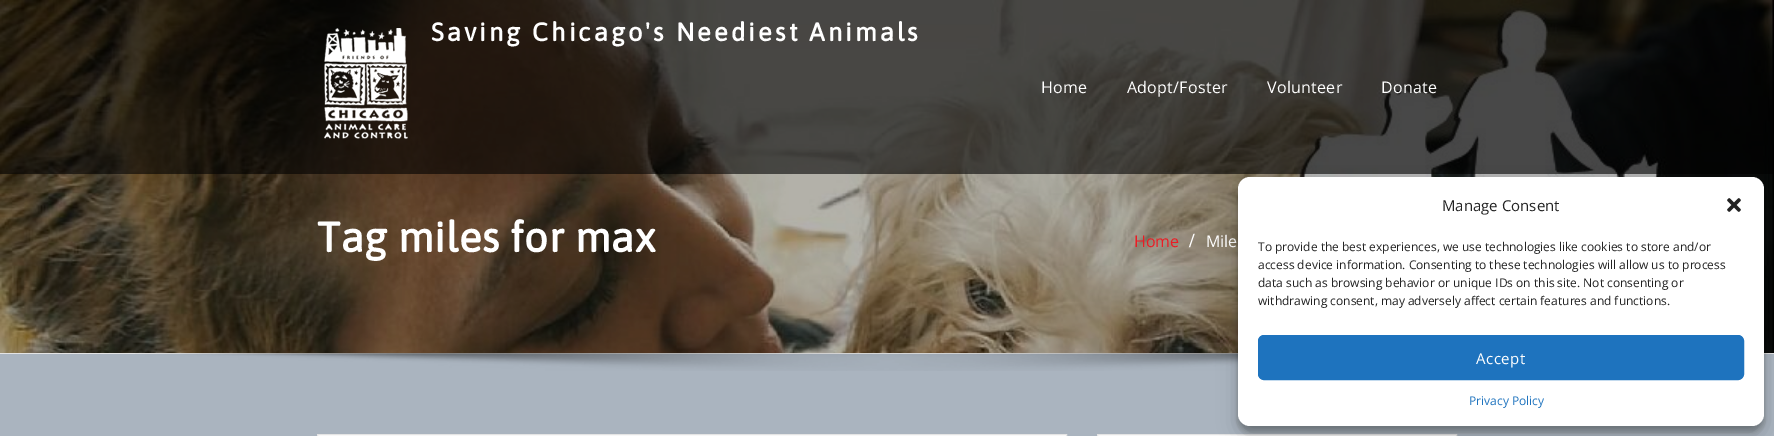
%!PS
<< /PageSize [1774 436] /PageUsesTransparency true >> setpagedevice
/alpha { dup .setfillconstantalpha .setstrokeconstantalpha } def
/roundrect { 5 dict begin { /r /h /w /y /x } { exch def } forall
  x r add y moveto x w add y 2 copy h add r arct x w add y h add x 1 index r arct
  x y h add x y r arct x y 2 copy exch w add exch r arct closepath end } def
/shadow { 12 dict begin { /a /b /q /h /w /y /x } { exch def } forall gsave /was 0 def
  9 -2 -9 { dup b mul 4 div /e exch def 1 sub .425 mul 2.718 exch exp 1 add a .99 .min exch div /now exch def
    1 1 now sub 1 was sub div sub alpha /was now def
    w h .min e 2 mul add 0 gt { x e sub y e sub w e 2 mul add h e 2 mul add
      q e add b .6 mul add w h .min 2 div e add .min 0 .max roundrect fill } if } for grestore end } def
/picture { 5 dict begin { /h /w /y /x /name } { exch def } forall
  gsave x y translate w h scale
  w h 8 [w 0 0 h 0 0] name (r) file false 3 colorimage grestore end } def
0 .pushpdf14devicefilter
0 436 translate 1 -1 scale
4 setmiterlimit
0.667 0.706 0.749 setrgbcolor
0 0 1774 436 rectfill
(img2.rgb) 0 0 1774 353 picture
0.6 alpha
0 setgray
0 0 1774 174 rectfill
1 alpha
(img1.rgb) 324 28 84 111 picture
/Asap-Bold [25.6 0 0 -25.6 0 0] selectfont
1 setgray
431 41 moveto 3 0 (Saving Chicago's Neediest Animals) ashow
/OpenSans-Regular [16 0 0 -16 0 0] selectfont
1041 93 moveto 0.25 0 (Home) ashow
1127 93 moveto 0.25 0 (Adopt/Foster) ashow
1267 93 moveto 0.25 0 (Volunteer) ashow
1381 93 moveto 0.25 0 (Donate) ashow
/Asap-Bold [42 0 0 -42 0 0] selectfont
317 252 moveto 0.5 0 (Tag miles for max) ashow
/OpenSans-Regular [16 0 0 -16 0 0] selectfont
0.925 0.11 0.141 setrgbcolor
1134 247 moveto (Home) show
/LiberationSerif-Bold [20 0 0 -20 0 0] selectfont
1 setgray
1189 247 moveto 2 0 (/) ashow
/OpenSans-Regular [16 0 0 -16 0 0] selectfont
1206 247 moveto (Mile) show
0.894 setgray
0 353 1774 1 rectfill
(img3.rgb) 135 353 1103 18 picture
1 setgray
newpath 317.5 434.5 moveto 1066.5 434.5 lineto 1066.5 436.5 lineto 317.5 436.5 lineto closepath gsave fill grestore
0.894 setgray
stroke
1 setgray
newpath 1097.5 434.5 moveto 1456.5 434.5 lineto 1456.5 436.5 lineto 1097.5 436.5 lineto closepath gsave fill grestore
0.894 setgray
stroke
0 setgray
1238 183 526 249 12 3 0.23 shadow
1238 187 526 249 12 10 0.19 shadow
1 setgray
1238 177 526 249 12 roundrect fill
/OpenSans-Regular [15 0 0 -15 0 0] selectfont
0.133 setgray
1442 211 moveto (Manage Consent) show
(img4.rgb) 1727 198 14 14 picture
/OpenSans-Regular [12 0 0 -12 0 0] selectfont
1258 251 moveto (To provide the best experiences, we use technologies like cookies to store and/or) show
1258 269 moveto (access device information. Consenting to these technologies will allow us to process) show
1258 287 moveto (data such as browsing behavior or unique IDs on this site. Not consenting or) show
1258 305 moveto (withdrawing consent, may adversely affect certain features and functions.) show
0.118 0.451 0.745 setrgbcolor
1258.5 335.5 485 44 5.5 roundrect gsave fill grestore
stroke
/OpenSans-Regular [15 0 0 -15 0 0] selectfont
1 setgray
1476 364 moveto 0.5 0 (Accept) ashow
/OpenSans-Regular [12 0 0 -12 0 0] selectfont
0.118 0.451 0.745 setrgbcolor
1469 405 moveto (Privacy Policy) show
.poppdf14devicefilter showpage
